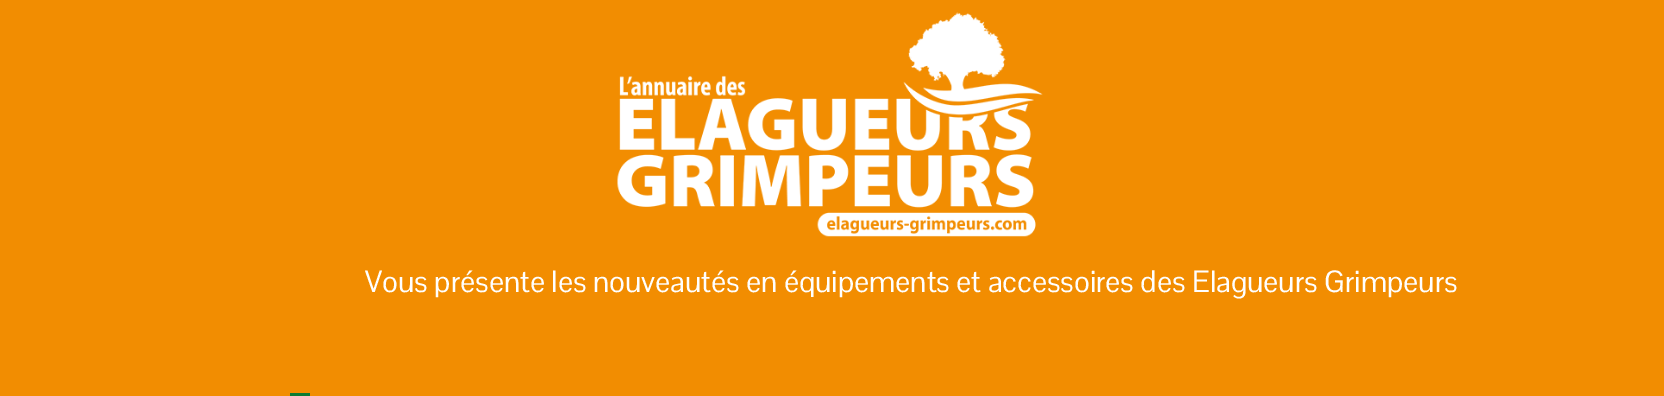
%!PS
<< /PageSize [1664 396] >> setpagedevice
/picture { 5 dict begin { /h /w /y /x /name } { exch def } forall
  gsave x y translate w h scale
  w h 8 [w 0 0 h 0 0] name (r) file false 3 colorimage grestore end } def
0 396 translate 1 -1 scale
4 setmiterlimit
0.949 0.553 0.004 setrgbcolor
0 0 1664 396 rectfill
(img1.rgb) 617 12 426 225 picture
/PontanoSans-Regular [30 0 0 -30 0 0] selectfont
1 setgray
365 292 moveto (Vous présente les nouveautés en équipements et accessoires des Elagueurs Grimpeurs) show
0.043 0.482 0.2 setrgbcolor
290 393 20 3 rectfill
showpage
